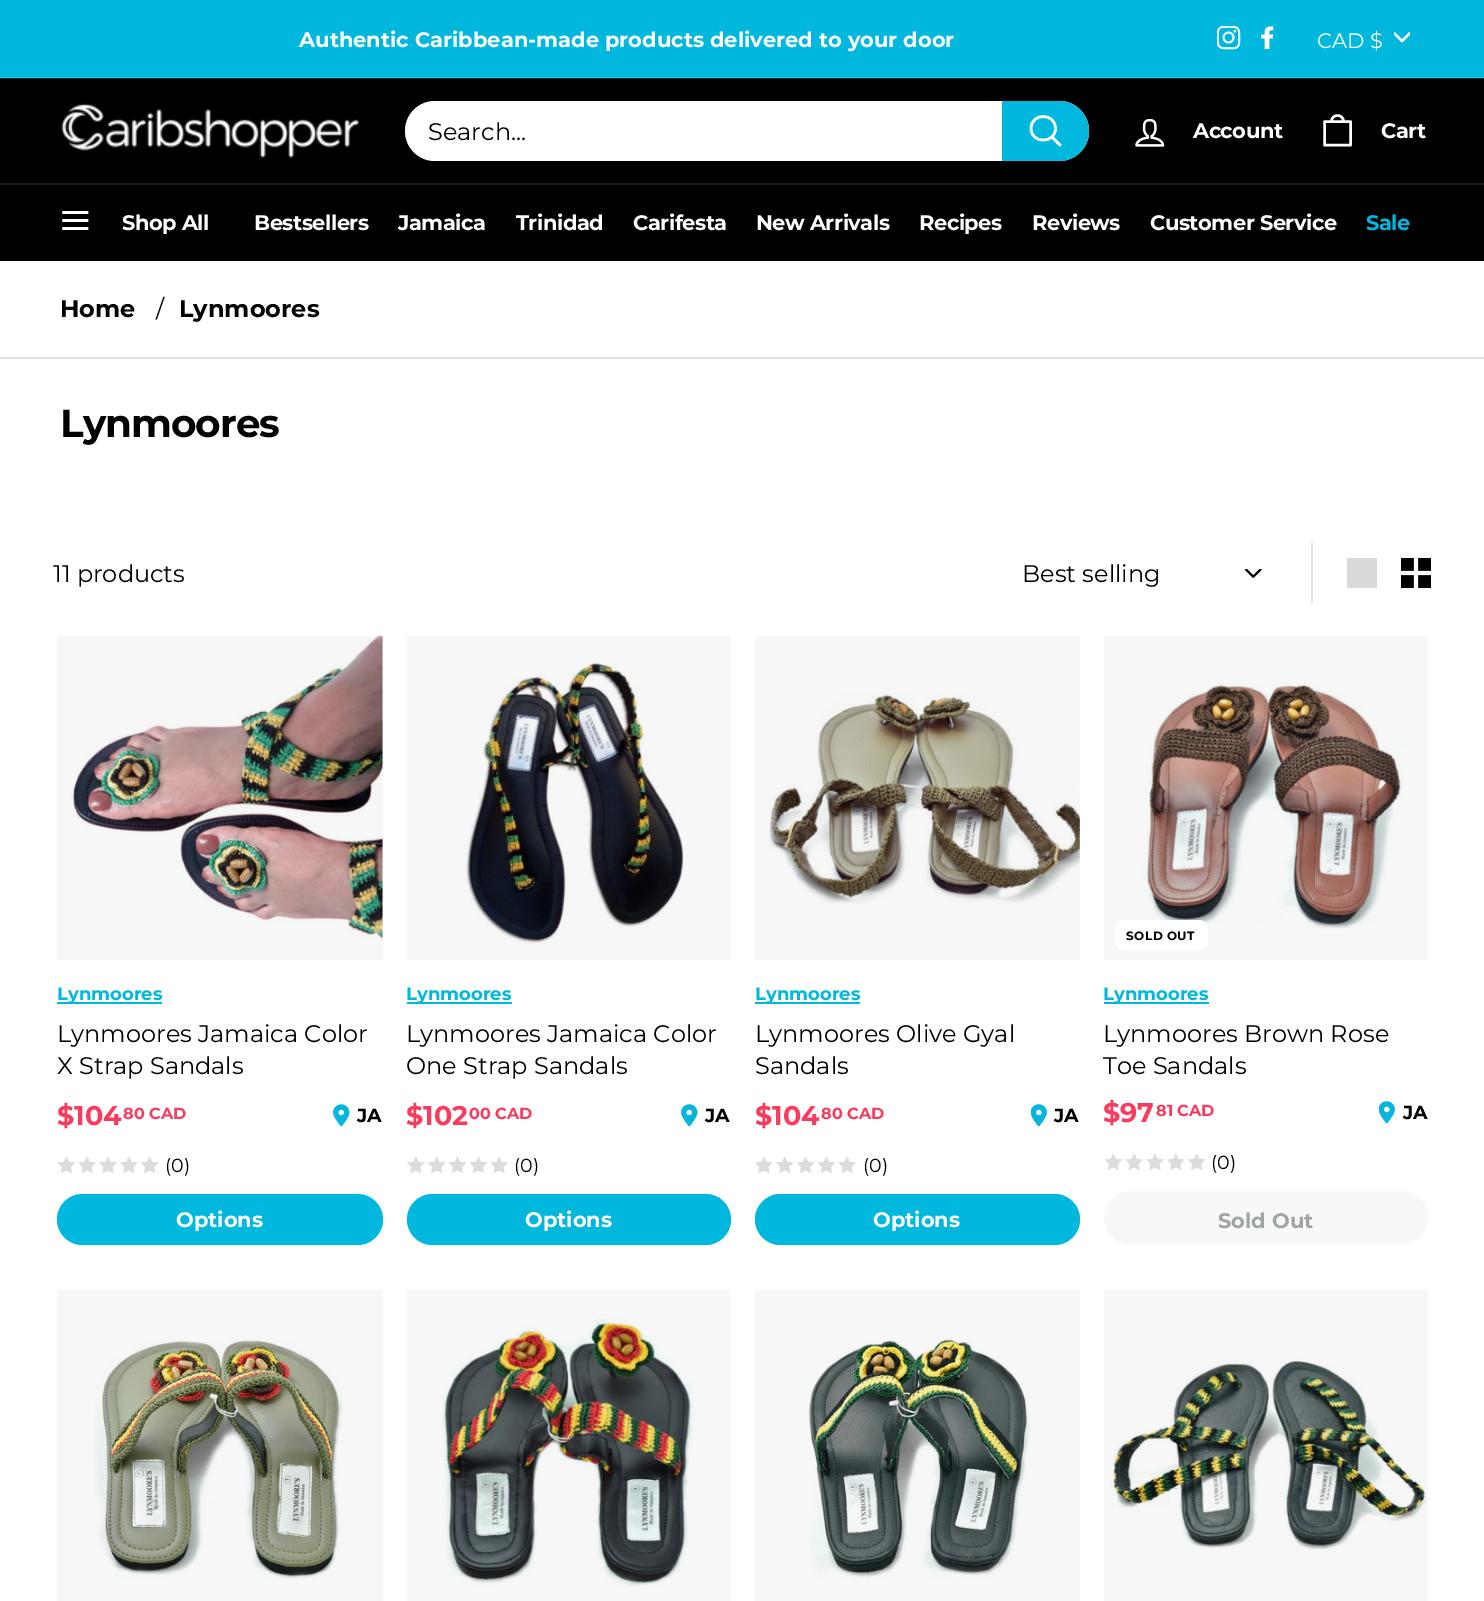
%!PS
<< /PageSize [1484 1601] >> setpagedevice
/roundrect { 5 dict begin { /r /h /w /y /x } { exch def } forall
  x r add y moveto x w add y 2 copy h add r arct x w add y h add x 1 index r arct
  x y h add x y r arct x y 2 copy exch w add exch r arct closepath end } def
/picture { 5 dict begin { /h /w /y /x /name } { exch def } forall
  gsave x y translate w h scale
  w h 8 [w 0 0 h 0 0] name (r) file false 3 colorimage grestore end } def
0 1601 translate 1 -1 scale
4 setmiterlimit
1 setgray
0 0 1484 1601 rectfill
0.969 setgray
1104 1290 324 311 rectfill
755 1290 325 311 rectfill
407 1290 324 311 rectfill
57 1290 326 311 rectfill
1104 636 324 324 rectfill
755 636 325 324 rectfill
407 636 324 324 rectfill
57 636 326 324 rectfill
0 0.718 0.871 setrgbcolor
0 0 1484 77 rectfill
0.149 0.761 0.89 setrgbcolor
0 77 1484 1 rectfill
/Montserrat-Bold [21 0 0 -21 0 0] selectfont
1 setgray
299 47 moveto (Authentic Caribbean-made products delivered to your door) show
(img1.rgb) 1217 26 24 24 picture
(img2.rgb) 1261 26 13 23 picture
/Montserrat-Regular [21 0 0 -21 0 0] selectfont
1317 48 moveto (CAD $) show
gsave
1394 30 16 17 rectclip
2.4 setlinewidth
1 setlinecap
1 setlinejoin
newpath 1394.5 33.5 moveto 1402 41 lineto 1409.5 33.5 lineto stroke
grestore
0 setgray
0 79 1484 104 rectfill
0.149 setgray
0 78 1484 1 rectfill
(img3.rgb) 61 103 298 55 picture
1 setgray
405 101 684 60 30 roundrect fill
/Montserrat-Regular [24 0 0 -24 0 0] selectfont
0 setgray
428 140 moveto (Search...) show
0 0.718 0.871 setrgbcolor
newpath 1002 101 moveto 1059 101 lineto 1075.5 101 1089 114.5 1089 131 curveto 1089 147.5 1075.5 161 1059 161 curveto 1002 161 lineto closepath fill
1 setgray
2.6 setlinewidth
1 setlinecap
1 setlinejoin
newpath 1055.5 128.5 moveto 1055.5 144 1031 144 1031 128.5 curveto 1031 112.5 1055.5 112.5 1055.5 128.5 curveto closepath 1060 145 moveto 1052 137 lineto stroke
(img4.rgb) 1135 118 30 29 picture
/Montserrat-Bold [21 0 0 -21 0 0] selectfont
1193 138 moveto -0.5 0 (Account) ashow
2.5 setlinewidth
newpath 1331.5 121.5 moveto 1331.5 113.5 1343.5 113.5 1343.5 121.5 curveto 1324.5 121.5 moveto 1350.5 121.5 lineto 1350.5 145 lineto 1324.5 145 lineto closepath stroke
1381 138 moveto -0.5 0 (Cart) ashow
0 setgray
0 185 1484 76 rectfill
0.102 setgray
0 183 1484 2 rectfill
1 setgray
2.8 setlinewidth
newpath 63.5 212.5 moveto 87 212.5 lineto 63.5 220.5 moveto 87 220.5 lineto 63.5 228.5 moveto 87 228.5 lineto stroke
122 230 moveto -0.5 0 (Shop All) ashow
254 230 moveto -0.5 0 (Bestsellers) ashow
398 230 moveto -0.5 0 (Jamaica) ashow
516 230 moveto -0.5 0 (Trinidad) ashow
633 230 moveto -0.5 0 (Carifesta) ashow
756 230 moveto -0.5 0 (New Arrivals) ashow
919 230 moveto -0.5 0 (Recipes) ashow
1032 230 moveto -0.5 0 (Reviews) ashow
1150 230 moveto -0.5 0 (Customer Service) ashow
0 0.718 0.871 setrgbcolor
1366 230 moveto -0.5 0 (Sale) ashow
/Montserrat-Bold [24 0 0 -24 0 0] selectfont
0 setgray
60 317 moveto (Home) show
/Montserrat-Regular [24 0 0 -24 0 0] selectfont
156 317 moveto (/) show
/Montserrat-Bold [24 0 0 -24 0 0] selectfont
179 317 moveto (Lynmoores) show
0.882 setgray
0 357 1484 2 rectfill
/Montserrat-Bold [39 0 0 -39 0 0] selectfont
0 setgray
60 437 moveto -1 0 (Lynmoores) ashow
/Montserrat-Regular [24 0 0 -24 0 0] selectfont
53 582 moveto (11 products) show
0.882 setgray
1311 543 2 60 rectfill
(img5.rgb) 1245 569 17 9 picture
0 setgray
1022 582 moveto (Best selling) show
0.851 setgray
1347 558 30 30 rectfill
(img6.rgb) 1401 558 30 30 picture
(img7.rgb) 71 635 312 304 picture
0 0.718 0.871 setrgbcolor
57 1002 105 2 rectfill
/Montserrat-Bold [18 0 0 -18 0 0] selectfont
57 1000 moveto (Lynmoores) show
/Montserrat-Regular [24 0 0 -24 0 0] selectfont
0 setgray
57 1042 moveto (Lynmoores Jamaica Color) show
57 1074 moveto (X Strap Sandals) show
/Montserrat-Bold [27 0 0 -27 0 0] selectfont
0.976 0.231 0.369 setrgbcolor
57 1125 moveto ($104) show
/Montserrat-Bold [16 0 0 -16 0 0] selectfont
123 1119 moveto (80 CAD) show
(img8.rgb) 333 1104 17 23 picture
/Montserrat-Bold [19 0 0 -19 0 0] selectfont
0 setgray
357 1122 moveto (JA) show
(img9.rgb) 57 1156 102 18 picture
/Montserrat-Regular [19 0 0 -19 0 0] selectfont
165 1172 moveto (\(0\)) show
0 0.718 0.871 setrgbcolor
57 1194 326 51 25.5 roundrect fill
/Montserrat-Bold [21 0 0 -21 0 0] selectfont
1 setgray
176 1227 moveto (Options) show
(img10.rgb) 466 663 218 281 picture
0 0.718 0.871 setrgbcolor
407 1002 105 2 rectfill
/Montserrat-Bold [18 0 0 -18 0 0] selectfont
406 1000 moveto (Lynmoores) show
/Montserrat-Regular [24 0 0 -24 0 0] selectfont
0 setgray
406 1042 moveto (Lynmoores Jamaica Color) show
406 1074 moveto (One Strap Sandals) show
/Montserrat-Bold [27 0 0 -27 0 0] selectfont
0.976 0.231 0.369 setrgbcolor
406 1125 moveto ($102) show
/Montserrat-Bold [16 0 0 -16 0 0] selectfont
469 1119 moveto (00 CAD) show
(img8.rgb) 681 1104 17 23 picture
/Montserrat-Bold [19 0 0 -19 0 0] selectfont
0 setgray
705 1122 moveto (JA) show
(img11.rgb) 407 1156 101 18 picture
/Montserrat-Regular [19 0 0 -19 0 0] selectfont
514 1172 moveto (\(0\)) show
0 0.718 0.871 setrgbcolor
407 1194 324 51 25.5 roundrect fill
/Montserrat-Bold [21 0 0 -21 0 0] selectfont
1 setgray
525 1227 moveto (Options) show
(img12.rgb) 768 693 312 211 picture
0 0.718 0.871 setrgbcolor
755 1002 105 2 rectfill
/Montserrat-Bold [18 0 0 -18 0 0] selectfont
755 1000 moveto (Lynmoores) show
/Montserrat-Regular [24 0 0 -24 0 0] selectfont
0 setgray
755 1042 moveto (Lynmoores Olive Gyal) show
755 1074 moveto (Sandals) show
/Montserrat-Bold [27 0 0 -27 0 0] selectfont
0.976 0.231 0.369 setrgbcolor
755 1125 moveto ($104) show
/Montserrat-Bold [16 0 0 -16 0 0] selectfont
821 1119 moveto (80 CAD) show
(img13.rgb) 1031 1104 16 23 picture
/Montserrat-Bold [19 0 0 -19 0 0] selectfont
0 setgray
1054 1122 moveto (JA) show
(img11.rgb) 755 1156 101 18 picture
/Montserrat-Regular [19 0 0 -19 0 0] selectfont
863 1172 moveto (\(0\)) show
0 0.718 0.871 setrgbcolor
755 1194 325 51 25.5 roundrect fill
/Montserrat-Bold [21 0 0 -21 0 0] selectfont
1 setgray
873 1227 moveto (Options) show
(img14.rgb) 1140 683 267 246 picture
1115 920 93 30 9 roundrect fill
/Montserrat-Bold [12 0 0 -12 0 0] selectfont
0 setgray
1126 940 moveto 0.5 0 (SOLD OUT) ashow
0 0.718 0.871 setrgbcolor
1104 1002 105 2 rectfill
/Montserrat-Bold [18 0 0 -18 0 0] selectfont
1103 1000 moveto (Lynmoores) show
/Montserrat-Regular [24 0 0 -24 0 0] selectfont
0 setgray
1103 1042 moveto (Lynmoores Brown Rose) show
1103 1074 moveto (Toe Sandals) show
/Montserrat-Bold [27 0 0 -27 0 0] selectfont
0.976 0.231 0.369 setrgbcolor
1103 1122 moveto ($97) show
/Montserrat-Bold [16 0 0 -16 0 0] selectfont
1156 1116 moveto (81 CAD) show
(img13.rgb) 1379 1101 16 23 picture
/Montserrat-Bold [19 0 0 -19 0 0] selectfont
0 setgray
1403 1119 moveto (JA) show
(img9.rgb) 1104 1153 102 18 picture
/Montserrat-Regular [19 0 0 -19 0 0] selectfont
1211 1169 moveto (\(0\)) show
0.973 setgray
1104 1191 324 54 27 roundrect fill
/Montserrat-Bold [21 0 0 -21 0 0] selectfont
0.62 0.647 0.659 setrgbcolor
1218 1228 moveto (Sold Out) show
(img15.rgb) 95 1340 248 239 picture
(img16.rgb) 442 1318 252 269 picture
(img17.rgb) 808 1337 223 242 picture
(img18.rgb) 1111 1359 317 191 picture
showpage
